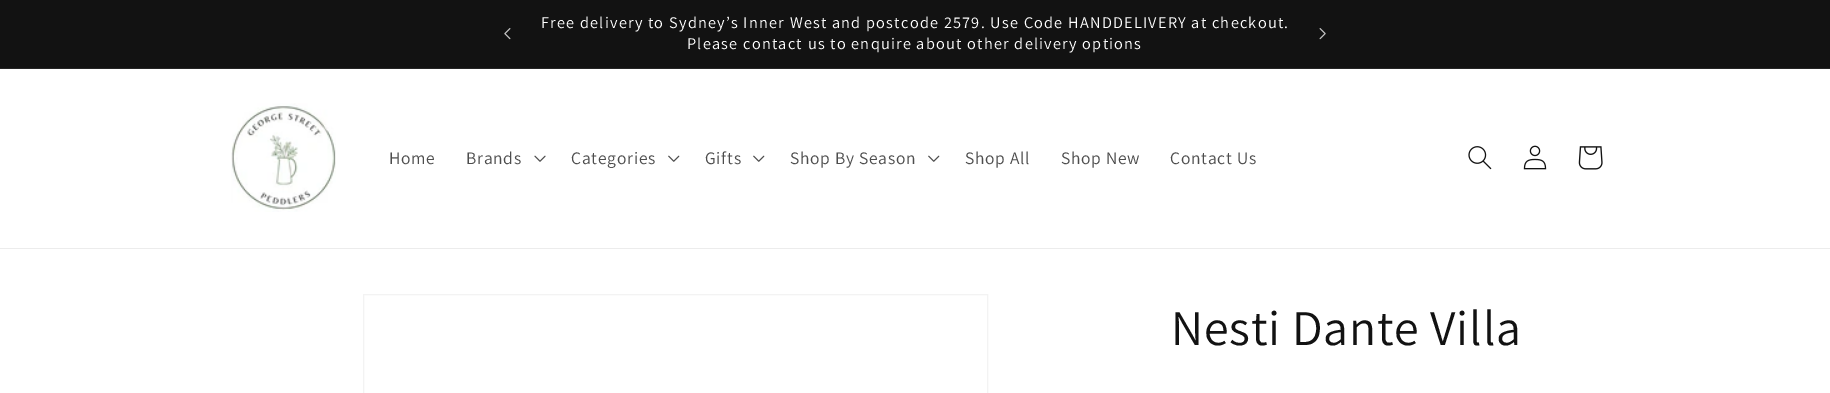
%!PS
<< /PageSize [1830 393] >> setpagedevice
/picture { 5 dict begin { /h /w /y /x /name } { exch def } forall
  gsave x y translate w h scale
  w h 8 [w 0 0 h 0 0] name (r) file false 3 colorimage grestore end } def
0 393 translate 1 -1 scale
4 setmiterlimit
1 setgray
0 0 1830 393 rectfill
0.071 setgray
0 0 1830 68 rectfill
0.145 setgray
0 68 1830 1 rectfill
(img1.rgb) 504 28 7 12 picture
/Assistant-Regular [16.25 0 0 -16.25 0 0] selectfont
1 setgray
541 28 moveto 1.25 0 (Free delivery to Sydney’s Inner West and postcode 2579. Use Code HANDDELIVERY at checkout.) ashow
687 49 moveto 1.25 0 (Please contact us to enquire about other delivery options) ashow
(img2.rgb) 1319 28 7 12 picture
0.925 setgray
0 248 1830 1 rectfill
(img3.rgb) 231 103 105 109 picture
/Assistant-Regular [17.5 0 0 -17.5 0 0] selectfont
0.302 setgray
389 164 moveto 0.75 0 (Home) ashow
466 164 moveto 0.75 0 (Brands) ashow
(img4.rgb) 534 155 12 7 picture
571 164 moveto 0.75 0 (Categories) ashow
(img5.rgb) 668 155 12 7 picture
705 164 moveto 0.75 0 (Gifts) ashow
(img5.rgb) 753 155 12 7 picture
790 164 moveto 0.75 0 (Shop By Season) ashow
(img5.rgb) 928 155 12 7 picture
965 164 moveto 0.75 0 (Shop All) ashow
1061 164 moveto 0.75 0 (Shop New) ashow
1170 164 moveto 0.75 0 (Contact Us) ashow
(img6.rgb) 1468 146 24 24 picture
(img7.rgb) 1523 145 24 25 picture
(img8.rgb) 1578 146 25 24 picture
0.953 setgray
363.5 294.5 624 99 rectstroke
/Assistant-Regular [50 0 0 -50 0 0] selectfont
0.071 setgray
1171 345 moveto 0.75 0 (Nesti Dante Villa) ashow
showpage
